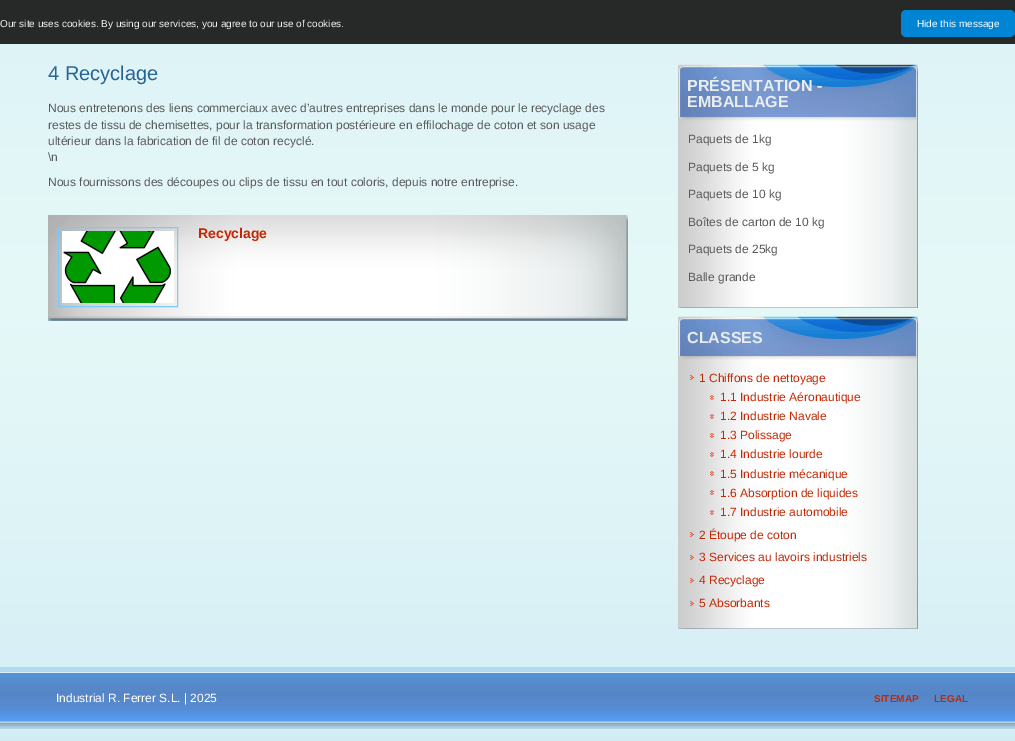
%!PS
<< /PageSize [1015 741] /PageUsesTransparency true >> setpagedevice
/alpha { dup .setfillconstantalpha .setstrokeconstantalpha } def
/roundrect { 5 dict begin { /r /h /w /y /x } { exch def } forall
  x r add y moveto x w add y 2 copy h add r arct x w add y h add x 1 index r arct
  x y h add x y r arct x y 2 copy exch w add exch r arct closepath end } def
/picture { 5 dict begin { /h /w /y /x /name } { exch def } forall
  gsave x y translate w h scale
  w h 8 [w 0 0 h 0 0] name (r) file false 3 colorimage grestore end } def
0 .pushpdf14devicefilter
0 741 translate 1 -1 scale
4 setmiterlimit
1 setgray
0 0 1015 741 rectfill
(img1.rgb) 0 0 1015 741 picture
0.95 alpha
0.114 setgray
0 0 1015 44 rectfill
/LiberationSans-Regular [10 0 0 -10 0 0] selectfont
1 alpha
0.961 setgray
0 27 moveto (Our site uses cookies. By using our services, you agree to our use of cookies.) show
0 0.518 0.831 setrgbcolor
901 10 114 27 5 roundrect fill
1 setgray
917 27 moveto (Hide this message) show
(img2.rgb) 0 667 1015 62 picture
/LiberationSans-Regular [20 0 0 -20 0 0] selectfont
0.153 0.388 0.58 setrgbcolor
48 80 moveto (4 Recyclage) show
/LiberationSans-Regular [12 0 0 -12 0 0] selectfont
0.345 0.349 0.357 setrgbcolor
48 112 moveto (Nous entretenons des liens commerciaux avec d’autres entreprises dans le monde pour le recyclage des) show
48 129 moveto (restes de tissu de chemisettes, pour la transformation postérieure en effilochage de coton et son usage) show
48 145 moveto (ultérieur dans la fabrication de fil de coton recyclé.) show
48 161 moveto (\\n) show
48 186 moveto (Nous fournissons des découpes ou clips de tissu en tout coloris, depuis notre entreprise.) show
(img3.rgb) 48 316 580 5 picture
(img4.rgb) 48 215 580 101 picture
0.482 0.796 0.973 setrgbcolor
58.5 227.5 119 79 rectstroke
(img5.rgb) 62 231 112 72 picture
/LiberationSans-Bold [14 0 0 -14 0 0] selectfont
0.761 0.157 0.016 setrgbcolor
198 238 moveto (Recyclage) show
(img6.rgb) 678 122 240 186 picture
(img7.rgb) 678 64 240 53 picture
(img8.rgb) 678 117 240 5 picture
/LiberationSans-Bold [16 0 0 -16 0 0] selectfont
0.914 0.929 0.929 setrgbcolor
687 91 moveto (PRÉSENTATION -) show
687 107 moveto (EMBALLAGE) show
/LiberationSans-Regular [12 0 0 -12 0 0] selectfont
0.345 0.349 0.357 setrgbcolor
688 143 moveto (Paquets de 1kg) show
688 171 moveto (Paquets de 5 kg) show
688 198 moveto (Paquets de 10 kg) show
688 226 moveto (Boîtes de carton de 10 kg) show
688 253 moveto (Paquets de 25kg) show
688 281 moveto (Balle grande) show
(img9.rgb) 678 361 240 268 picture
(img10.rgb) 678 316 240 40 picture
(img8.rgb) 678 356 240 5 picture
/LiberationSans-Bold [16 0 0 -16 0 0] selectfont
0.914 0.929 0.929 setrgbcolor
687 343 moveto (CLASSES) show
(img11.rgb) 690 375 4 5 picture
/LiberationSans-Regular [12 0 0 -12 0 0] selectfont
0.761 0.157 0.016 setrgbcolor
699 382 moveto (1 Chiffons de nettoyage) show
(img12.rgb) 710 395 4 5 picture
720 401 moveto (1.1 Industrie Aéronautique) show
(img12.rgb) 710 414 4 5 picture
720 420 moveto (1.2 Industrie Navale) show
(img12.rgb) 710 433 4 5 picture
720 439 moveto (1.3 Polissage) show
(img12.rgb) 710 452 4 5 picture
720 458 moveto (1.4 Industrie lourde) show
(img12.rgb) 710 471 4 5 picture
720 478 moveto (1.5 Industrie mécanique) show
(img12.rgb) 710 490 4 5 picture
720 497 moveto (1.6 Absorption de liquides) show
(img12.rgb) 710 510 4 5 picture
720 516 moveto (1.7 Industrie automobile) show
(img11.rgb) 690 532 4 5 picture
699 539 moveto (2 Étoupe de coton) show
(img11.rgb) 690 555 4 5 picture
699 561 moveto (3 Services au lavoirs industriels) show
(img11.rgb) 690 578 4 5 picture
699 584 moveto (4 Recyclage) show
(img11.rgb) 690 601 4 5 picture
699 607 moveto (5 Absorbants) show
1 setgray
56 702 moveto (Industrial R. Ferrer S.L. | 2025) show
/LiberationSans-Bold [10 0 0 -10 0 0] selectfont
0.761 0.157 0.016 setrgbcolor
874 702 moveto (SITEMAP) show
934 702 moveto (LEGAL) show
.poppdf14devicefilter showpage
